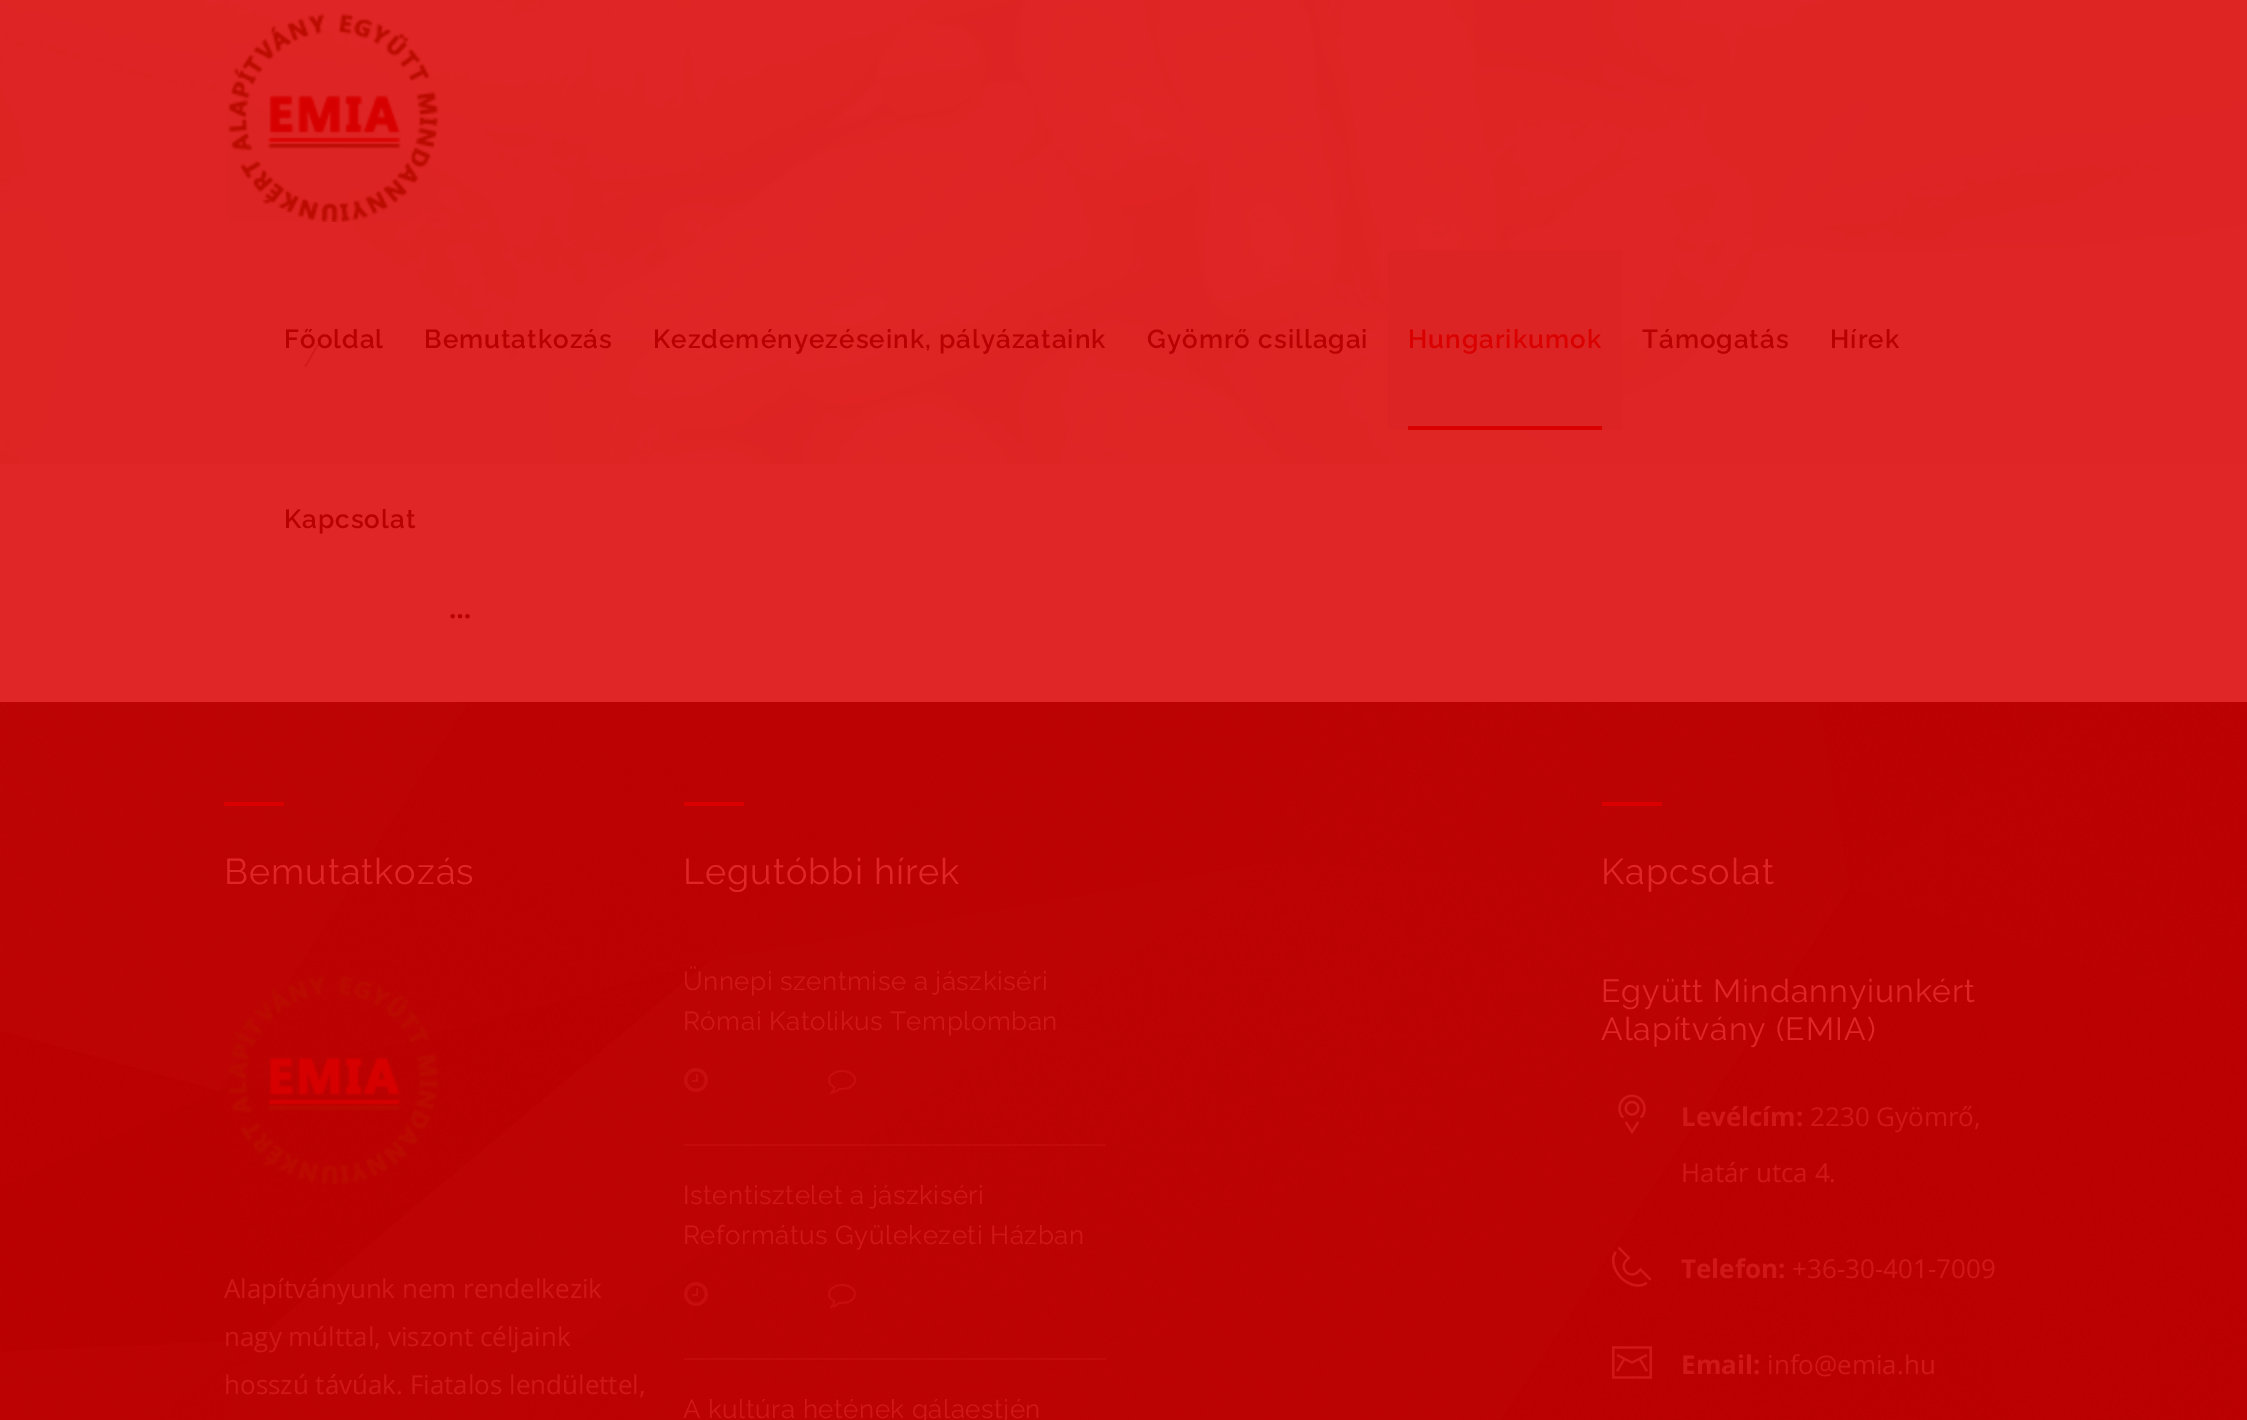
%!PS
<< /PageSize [2247 1420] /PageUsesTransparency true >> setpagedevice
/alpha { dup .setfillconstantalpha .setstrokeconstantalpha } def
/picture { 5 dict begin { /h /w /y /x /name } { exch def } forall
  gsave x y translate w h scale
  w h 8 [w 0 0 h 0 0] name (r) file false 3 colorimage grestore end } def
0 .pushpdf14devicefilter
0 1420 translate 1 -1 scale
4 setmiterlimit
0.878 0.149 0.149 setrgbcolor
0 0 2247 1420 rectfill
(img2.rgb) 0 0 2247 464 picture
0.725 0 0 setrgbcolor
newpath 318.5 342 moveto 320 343 lineto 306 367 lineto 304.5 366 lineto closepath fill
0.7 alpha
0.878 0.149 0.149 setrgbcolor
0 0 2247 464 rectfill
1 alpha
(img1.rgb) 227 13 212 209 picture
/Raleway-SemiBold [26 0 0 -26 0 0] selectfont
0.725 0 0 setrgbcolor
284 348 moveto 1 0 (Főoldal) ashow
424 348 moveto 1 0 (Bemutatkozás) ashow
653 348 moveto 1 0 (Kezdeményezéseink, pályázataink) ashow
1147 348 moveto 1 0 (Gyömrő csillagai) ashow
0.867 0.141 0.141 setrgbcolor
1388 250 234 180 rectfill
0.855 0 0 setrgbcolor
1408 348 moveto 1 0 (Hungarikumok) ashow
1408 426 194 4 rectfill
0.725 0 0 setrgbcolor
1642 348 moveto 1 0 (Támogatás) ashow
1830 348 moveto 1 0 (Hírek) ashow
284 528 moveto 1 0 (Kapcsolat) ashow
/OpenSans-Bold [26 0 0 -26 0 0] selectfont
449 618 moveto (…) show
(img3.rgb) 0 702 2247 718 picture
0.855 0 0 setrgbcolor
224 802 60 4 rectfill
/Raleway-Regular [36 0 0 -36 0 0] selectfont
0.878 0.149 0.149 setrgbcolor
224 884 moveto 1 0 (Bemutatkozás) ashow
(img4.rgb) 227 975 212 209 picture
/OpenSans-Regular [26 0 0 -26 0 0] selectfont
0.82 0.094 0.094 setrgbcolor
224 1298 moveto (Alapítványunk nem rendelkezik) show
224 1346 moveto (nagy múlttal, viszont céljaink) show
224 1394 moveto (hosszú távúak. Fiatalos lendülettel,) show
0.855 0 0 setrgbcolor
684 802 60 4 rectfill
/Raleway-Regular [36 0 0 -36 0 0] selectfont
0.878 0.149 0.149 setrgbcolor
683 884 moveto 1 0 (Legutóbbi hírek) ashow
0.2 alpha
684 1144 422 2 rectfill
/Raleway-Regular [26 0 0 -26 0 0] selectfont
1 alpha
0.82 0.094 0.094 setrgbcolor
683 990 moveto 0.5 0 (Ünnepi szentmise a jászkiséri) ashow
683 1030 moveto 0.5 0 (Római Katolikus Templomban) ashow
(img5.rgb) 684 1068 24 24 picture
(img6.rgb) 828 1070 28 24 picture
0.2 alpha
0.878 0.149 0.149 setrgbcolor
684 1358 422 2 rectfill
1 alpha
0.82 0.094 0.094 setrgbcolor
683 1204 moveto 0.5 0 (Istentisztelet a jászkiséri) ashow
683 1244 moveto 0.5 0 (Református Gyülekezeti Házban) ashow
(img7.rgb) 684 1282 24 24 picture
(img8.rgb) 828 1284 28 24 picture
683 1418 moveto 0.5 0 (A kultúra hetének gálaestjén) ashow
0.855 0 0 setrgbcolor
1602 802 60 4 rectfill
/Raleway-Regular [36 0 0 -36 0 0] selectfont
0.878 0.149 0.149 setrgbcolor
1601 884 moveto 1 0 (Kapcsolat) ashow
/Raleway-Regular [32 0 0 -32 0 0] selectfont
1601 1002 moveto 1 0 (Együtt Mindannyiunkért) ashow
1601 1040 moveto 1 0 (Alapítvány \(EMIA\)) ashow
(img9.rgb) 1618 1094 28 40 picture
/OpenSans-Bold [26 0 0 -26 0 0] selectfont
0.82 0.094 0.094 setrgbcolor
1681 1126 moveto (Levélcím:) show
/OpenSans-Regular [26 0 0 -26 0 0] selectfont
1810 1126 moveto (2230 Gyömrő,) show
1681 1182 moveto (Határ utca 4.) show
(img10.rgb) 1611 1246 41 41 picture
/OpenSans-Bold [26 0 0 -26 0 0] selectfont
1681 1278 moveto (Telefon:) show
/OpenSans-Regular [26 0 0 -26 0 0] selectfont
1792 1278 moveto (+36-30-401-7009) show
(img11.rgb) 1612 1346 40 33 picture
/OpenSans-Bold [26 0 0 -26 0 0] selectfont
1681 1374 moveto (Email:) show
/OpenSans-Regular [26 0 0 -26 0 0] selectfont
1767 1374 moveto (info@emia.hu) show
.poppdf14devicefilter showpage
